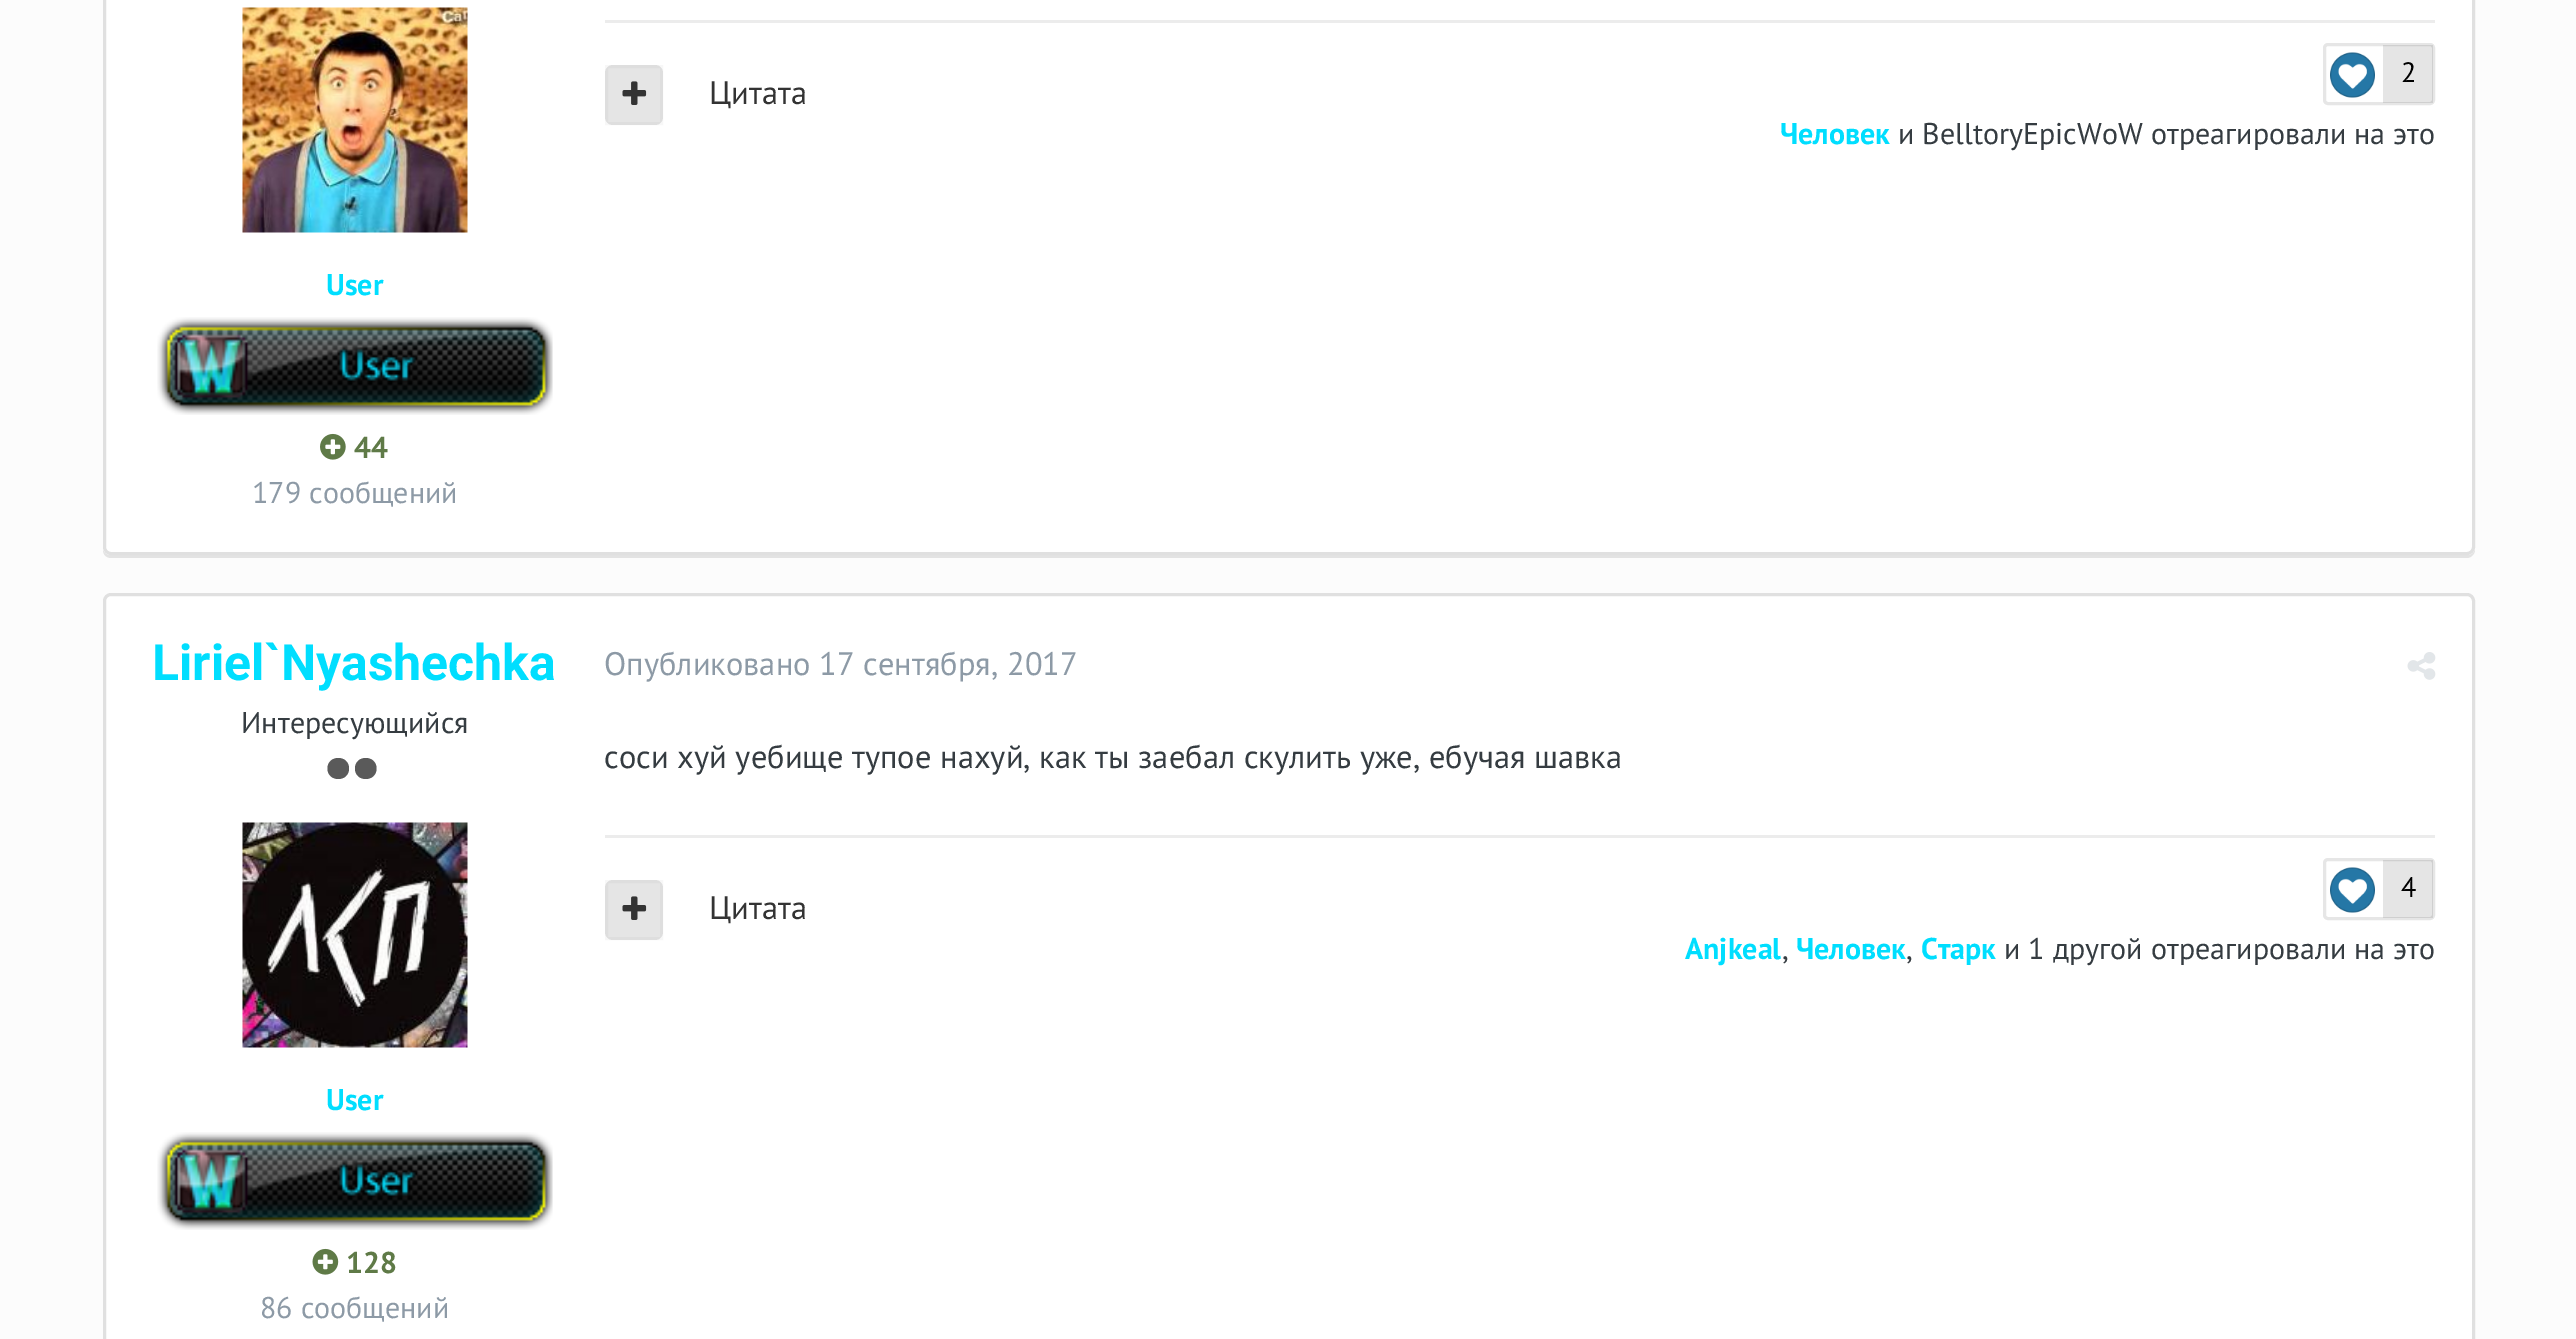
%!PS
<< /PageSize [2576 1339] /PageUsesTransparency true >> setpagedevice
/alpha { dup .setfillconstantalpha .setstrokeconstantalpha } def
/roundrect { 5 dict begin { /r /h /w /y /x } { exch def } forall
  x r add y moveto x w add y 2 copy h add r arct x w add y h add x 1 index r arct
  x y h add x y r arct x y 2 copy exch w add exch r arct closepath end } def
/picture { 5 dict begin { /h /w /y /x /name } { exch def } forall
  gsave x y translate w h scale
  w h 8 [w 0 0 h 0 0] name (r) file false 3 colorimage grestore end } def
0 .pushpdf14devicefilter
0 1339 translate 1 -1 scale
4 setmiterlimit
0.988 setgray
0 0 2576 1339 rectfill
0.89 setgray
newpath 103 550 moveto 103 555 107 558 111 558 curveto 2467 558 lineto 2471 558 2475 554 2475 550 curveto 2475 548 lineto 2475 552 2472 555 2468 555 curveto 110 555 lineto 107 555 104 553 103 550 curveto closepath fill
1 setgray
104.5 -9.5 2369 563 6.5 roundrect gsave fill grestore
0.878 setgray
3 setlinewidth
stroke
0.925 setgray
605 20 1830 3 rectfill
0.898 setgray
605 65 58 60 8 roundrect fill
0.03 alpha
0 setgray
606.5 66.5 55 57 rectstroke
1 alpha
(img1.rgb) 622 81 25 24 picture
/PTSans-Regular [32.5 0 0 -32.5 0 0] selectfont
0.2 setgray
709 104 moveto (Цитата) show
0.902 setgray
2324.5 44.5 109 59 3.5 roundrect stroke
(img2.rgb) 2330 52 45 46 picture
0.1 alpha
0 setgray
2383 45 50 58 rectfill
/PTSans-Regular [28 0 0 -28 0 0] selectfont
1 alpha
2401 82 moveto (2) show
/PTSans-Bold [30 0 0 -30 0 0] selectfont
0 0.871 1 setrgbcolor
1780 144 moveto (Человек) show
/PTSans-Regular [30 0 0 -30 0 0] selectfont
0.208 0.235 0.255 setrgbcolor
1898 144 moveto (и BelltoryEpicWoW отреагировали на это) show
(img3.rgb) 242 7 226 226 picture
/PTSans-Bold [30 0 0 -30 0 0] selectfont
0 0.871 1 setrgbcolor
326 295 moveto (User) show
(img4.rgb) 157 317 396 98 picture
(img5.rgb) 320 433 26 27 picture
0.373 0.478 0.278 setrgbcolor
354 458 moveto (44) show
/PTSans-Regular [30 0 0 -30 0 0] selectfont
0.553 0.604 0.651 setrgbcolor
252 503 moveto (179 сообщений) show
1 setgray
104.5 594.5 2369 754 6.5 roundrect gsave fill grestore
0.878 setgray
stroke
/Roboto-Bold [50 0 0 -50 0 0] selectfont
0 0.871 1 setrgbcolor
152 680 moveto (Liriel`Nyashechka) show
/PTSans-Regular [30 0 0 -30 0 0] selectfont
0.208 0.235 0.255 setrgbcolor
241 733 moveto (Интересующийся) show
0.353 setgray
newpath 349 768.5 moveto 349 754.5 327.5 754.5 327.5 768.5 curveto 327.5 782.5 349 782.5 349 768.5 curveto closepath 376.5 768.5 moveto 376.5 754.5 355 754.5 355 768.5 curveto 355 782.5 376.5 782.5 376.5 768.5 curveto closepath fill
(img6.rgb) 242 822 226 226 picture
/PTSans-Bold [30 0 0 -30 0 0] selectfont
0 0.871 1 setrgbcolor
326 1110 moveto (User) show
(img4.rgb) 157 1132 396 98 picture
(img7.rgb) 312 1248 27 27 picture
0.373 0.478 0.278 setrgbcolor
346 1273 moveto (128) show
/PTSans-Regular [30 0 0 -30 0 0] selectfont
0.553 0.604 0.651 setrgbcolor
260 1318 moveto (86 сообщений) show
/PTSans-Regular [32.5 0 0 -32.5 0 0] selectfont
604 675 moveto (Опубликовано 17 сентября, 2017) show
(img8.rgb) 2407 652 29 28 picture
0.208 0.235 0.255 setrgbcolor
604 768 moveto (соси хуй уебище тупое нахуй, как ты заебал скулить уже, ебучая шавка) show
0.925 setgray
605 835 1830 3 rectfill
0.898 setgray
605 880 58 60 8 roundrect fill
0.03 alpha
0 setgray
606.5 881.5 55 57 rectstroke
1 alpha
(img1.rgb) 622 896 25 24 picture
0.2 setgray
709 919 moveto (Цитата) show
0.902 setgray
2324.5 859.5 109 59 3.5 roundrect stroke
(img2.rgb) 2330 867 45 46 picture
0.1 alpha
0 setgray
2383 860 50 58 rectfill
/PTSans-Regular [28 0 0 -28 0 0] selectfont
1 alpha
2401 897 moveto (4) show
/PTSans-Bold [30 0 0 -30 0 0] selectfont
0 0.871 1 setrgbcolor
1685 959 moveto (Anjkeal) show
/PTSans-Regular [30 0 0 -30 0 0] selectfont
0.208 0.235 0.255 setrgbcolor
1782 959 moveto (,) show
/PTSans-Bold [30 0 0 -30 0 0] selectfont
0 0.871 1 setrgbcolor
1796 959 moveto (Человек) show
/PTSans-Regular [30 0 0 -30 0 0] selectfont
0.208 0.235 0.255 setrgbcolor
1906 959 moveto (,) show
/PTSans-Bold [30 0 0 -30 0 0] selectfont
0 0.871 1 setrgbcolor
1921 959 moveto (Старк) show
/PTSans-Regular [30 0 0 -30 0 0] selectfont
0.208 0.235 0.255 setrgbcolor
2004 959 moveto (и 1 другой отреагировали на это) show
.poppdf14devicefilter showpage
